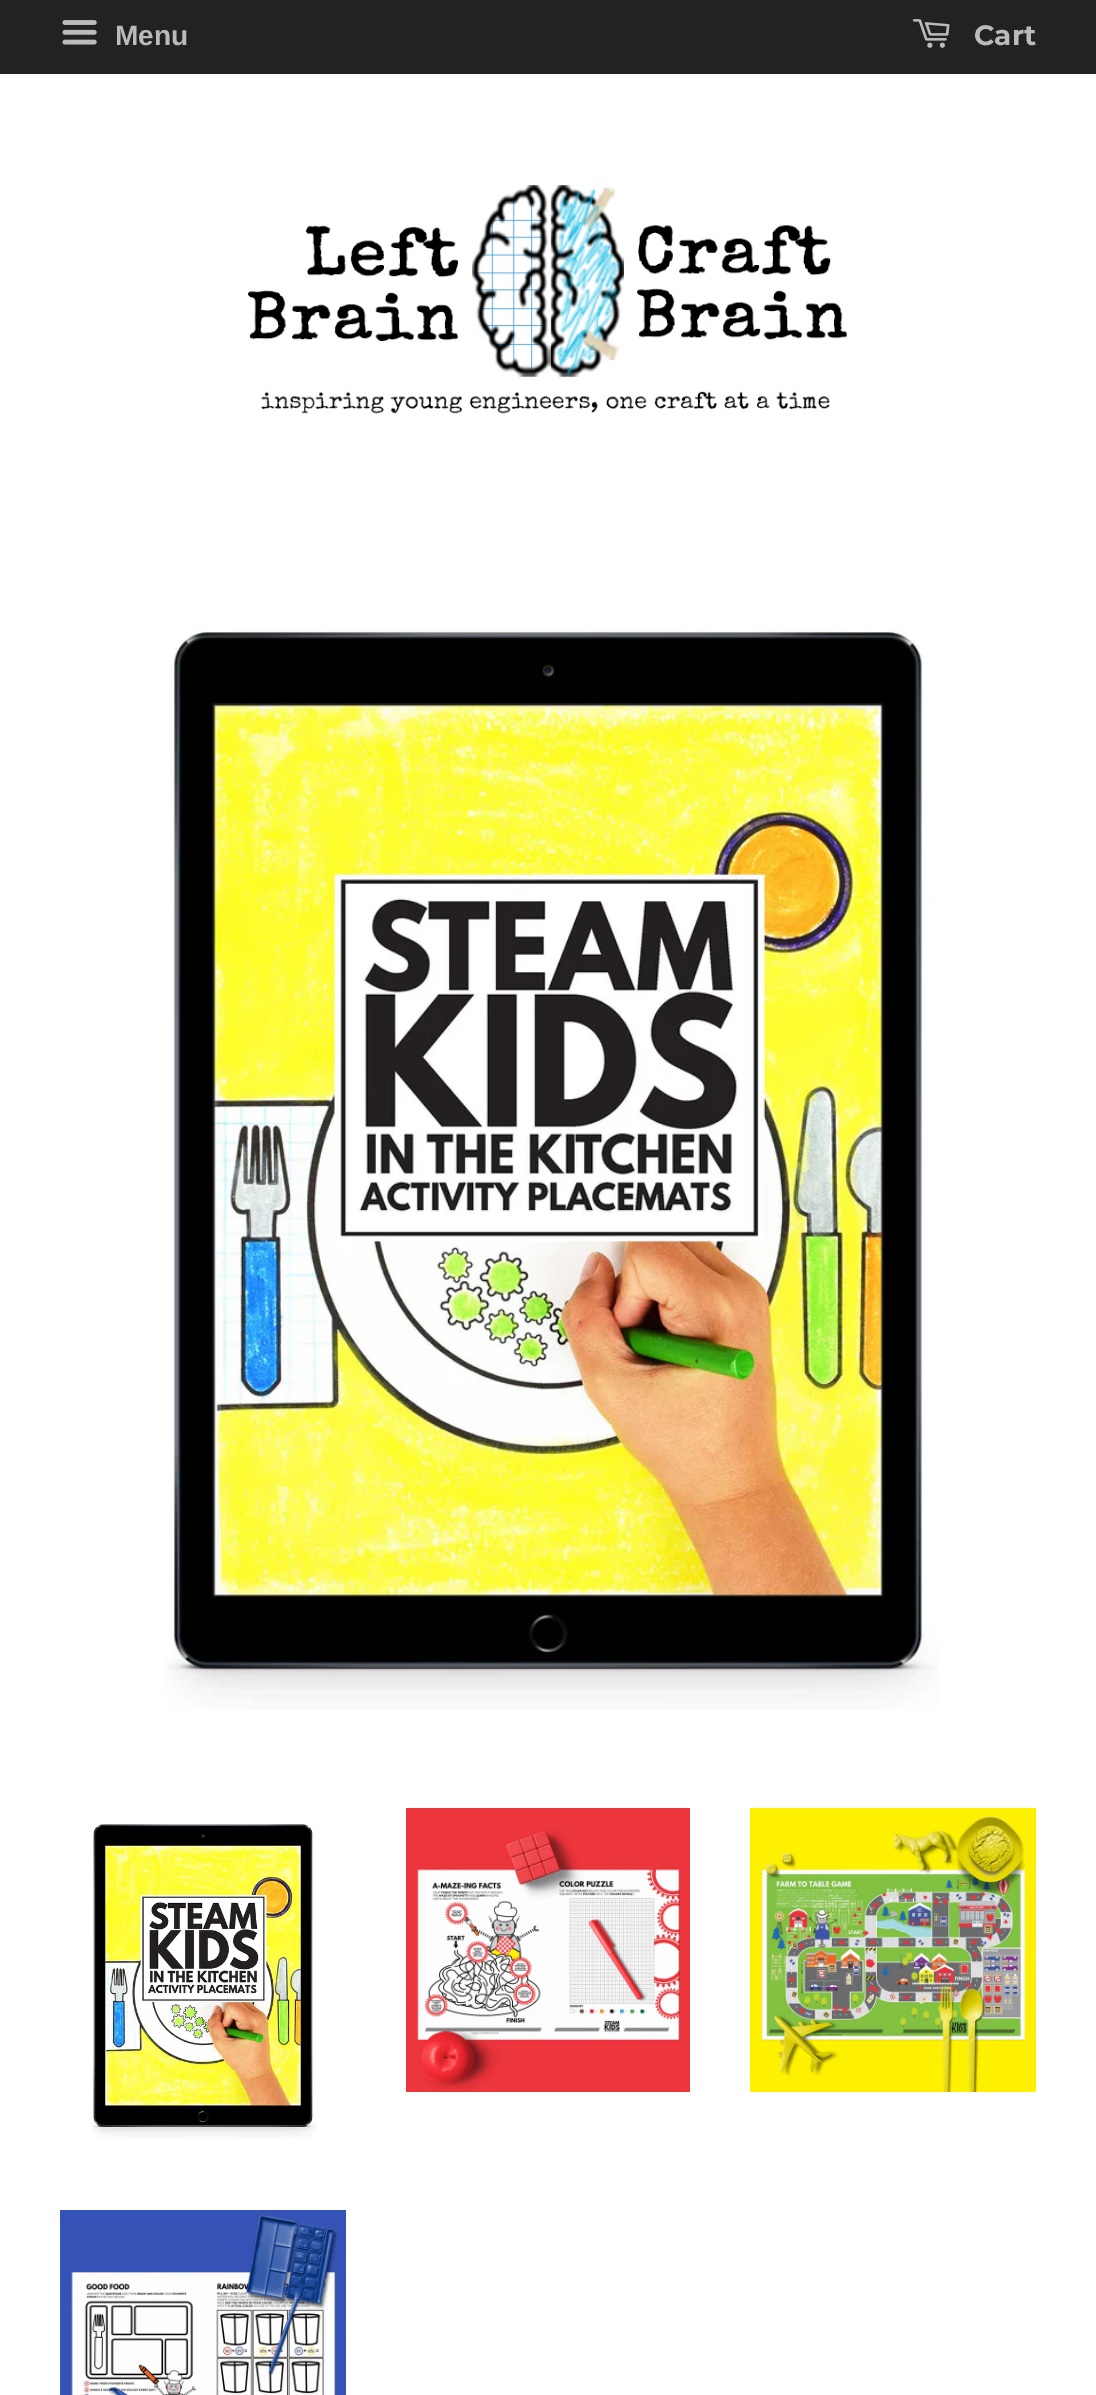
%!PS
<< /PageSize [1096 2395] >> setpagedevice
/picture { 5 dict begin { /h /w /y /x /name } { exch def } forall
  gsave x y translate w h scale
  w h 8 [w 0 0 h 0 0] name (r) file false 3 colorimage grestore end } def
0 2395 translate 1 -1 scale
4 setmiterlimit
1 setgray
0 0 1096 2395 rectfill
0.133 setgray
0 0 1096 74 rectfill
(img1.rgb) 62 20 35 25 picture
/LiberationSans-Bold [28 0 0 -28 0 0] selectfont
0.733 setgray
115 45 moveto (Menu) show
(img2.rgb) 912 19 38 29 picture
/Montserrat-Thin [28 0 0 -28 0 0] selectfont
974 45 moveto (Cart) show
(img3.rgb) 248 184 600 230 picture
(img4.rgb) 164 629 775 1081 picture
(img5.rgb) 91 1824 226 315 picture
(img6.rgb) 406 1808 284 284 picture
(img7.rgb) 750 1808 286 284 picture
(img8.rgb) 60 2210 286 185 picture
showpage
